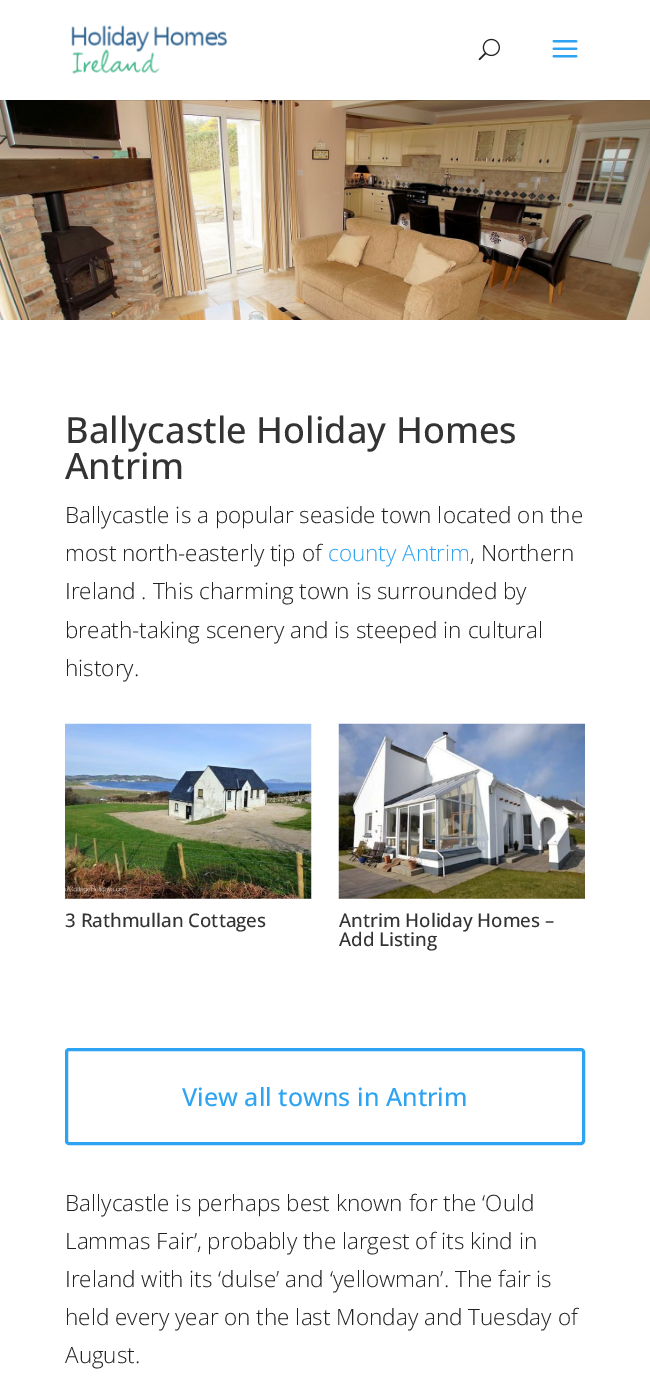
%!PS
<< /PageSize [650 1378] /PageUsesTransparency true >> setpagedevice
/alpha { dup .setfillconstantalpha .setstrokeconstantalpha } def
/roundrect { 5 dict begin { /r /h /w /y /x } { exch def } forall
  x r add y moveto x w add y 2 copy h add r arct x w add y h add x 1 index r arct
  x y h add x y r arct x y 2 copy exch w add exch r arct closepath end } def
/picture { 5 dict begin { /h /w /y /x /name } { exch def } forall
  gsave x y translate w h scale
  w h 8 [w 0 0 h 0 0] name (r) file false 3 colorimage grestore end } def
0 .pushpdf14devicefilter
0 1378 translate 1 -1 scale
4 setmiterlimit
1 setgray
0 0 650 1378 rectfill
(img4.rgb) 0 100 650 220 picture
0.1 alpha
0 setgray
0 100 650 1 rectfill
1 alpha
(img1.rgb) 71 25 157 49 picture
(img2.rgb) 478 38 22 23 picture
(img3.rgb) 552 40 26 18 picture
/OpenSans-Medium [36.25 0 0 -36.25 0 0] selectfont
0.2 setgray
65 443 moveto (Ballycastle Holiday Homes) show
65 479 moveto (Antrim) show
/OpenSans-Light [22.5 0 0 -22.5 0 0] selectfont
0.129 setgray
65 523 moveto (Ballycastle is a popular seaside town located on the) show
65 561 moveto (most north-easterly tip of) show
0.18 0.639 0.949 setrgbcolor
328 561 moveto (county Antrim) show
0.129 setgray
470 561 moveto (, Northern) show
65 599 moveto (Ireland . This charming town is surrounded by) show
65 638 moveto (breath-taking scenery and is steeped in cultural) show
65 676 moveto (history.) show
(img5.rgb) 65 723 247 176 picture
/OpenSans-Medium [18.75 0 0 -18.75 0 0] selectfont
0.2 setgray
65 927 moveto (3 Rathmullan Cottages) show
(img6.rgb) 338 723 247 176 picture
339 927 moveto (Antrim Holiday Homes –) show
339 946 moveto (Add Listing) show
0.18 0.639 0.949 setrgbcolor
3 setlinewidth
66.5 1049.5 517 94 2.5 roundrect stroke
/OpenSans-Medium [25 0 0 -25 0 0] selectfont
182 1106 moveto (View all towns in Antrim) show
/OpenSans-Light [22.5 0 0 -22.5 0 0] selectfont
0.129 setgray
65 1211 moveto (Ballycastle is perhaps best known for the ‘Ould) show
65 1249 moveto (Lammas Fair’, probably the largest of its kind in) show
65 1287 moveto (Ireland with its ‘dulse’ and ‘yellowman’. The fair is) show
65 1325 moveto (held every year on the last Monday and Tuesday of) show
65 1363 moveto (August.) show
.poppdf14devicefilter showpage
